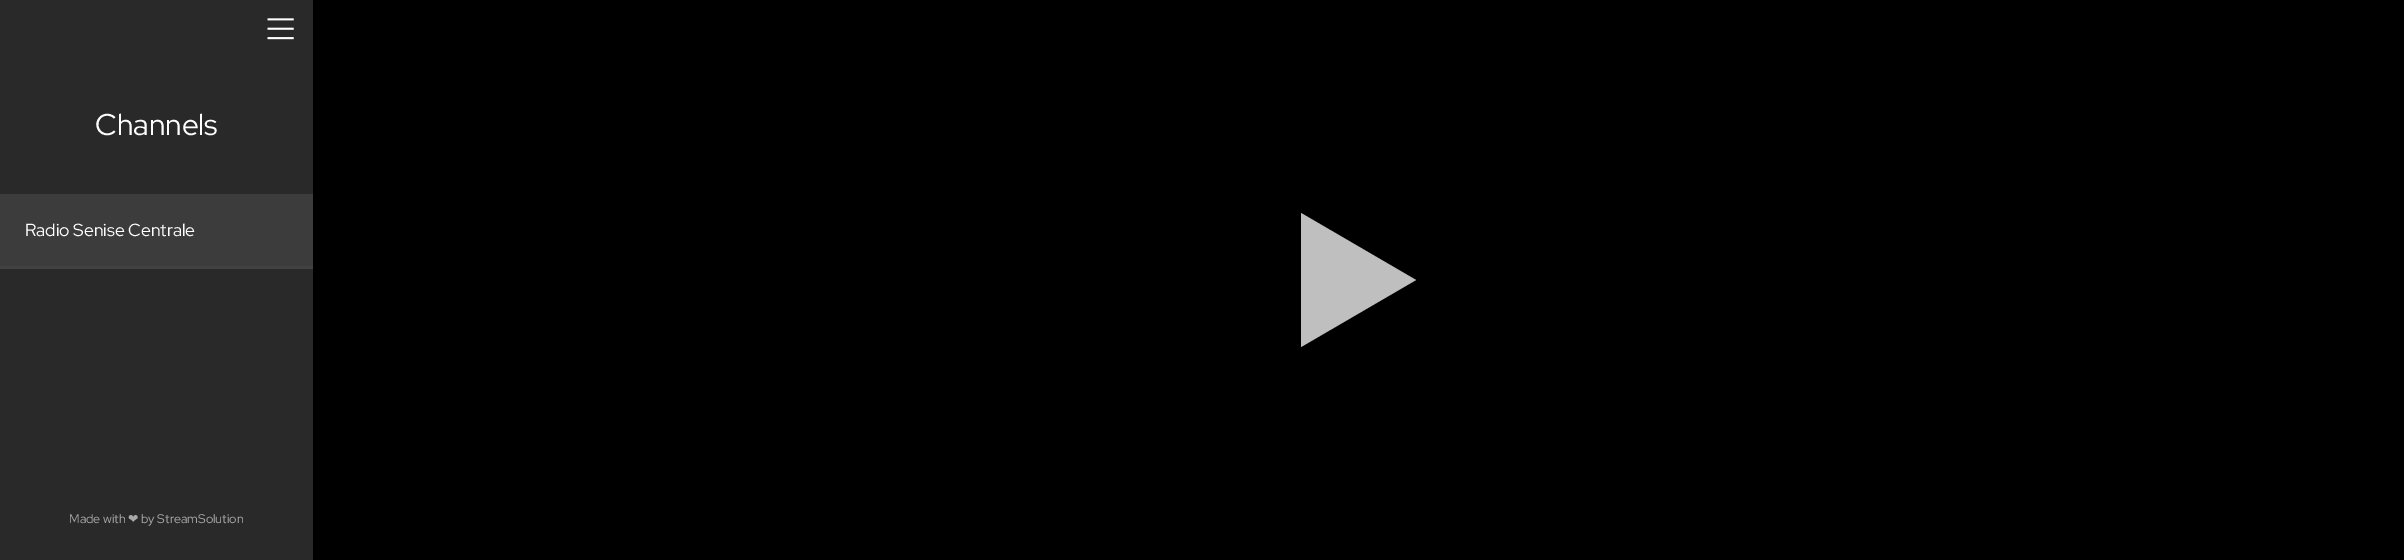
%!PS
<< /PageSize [2404 560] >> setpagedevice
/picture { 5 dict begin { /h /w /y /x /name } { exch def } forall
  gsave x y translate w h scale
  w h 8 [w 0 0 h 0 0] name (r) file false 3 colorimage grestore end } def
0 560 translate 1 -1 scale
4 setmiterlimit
0 setgray
0 0 2404 560 rectfill
0.161 setgray
0 0 313 560 rectfill
(img1.rgb) 267 18 27 22 picture
/RedHatDisplay-Regular [30 0 0 -30 0 0] selectfont
1 setgray
95 135 moveto (Channels) show
0.235 setgray
0 194 313 72 rectfill
0.259 setgray
0 266 313 3 rectfill
/RedHatDisplay-Regular [17.5 0 0 -17.5 0 0] selectfont
1 setgray
25 236 moveto (Radio Senise Centrale) show
/RedHatDisplay-Regular [12.5 0 0 -12.5 0 0] selectfont
0.663 setgray
69 523 moveto (Made with) show
/DejaVuSans-Regular [12.5 0 0 -12.5 0 0] selectfont
128 523 moveto (❤) show
/RedHatDisplay-Regular [12.5 0 0 -12.5 0 0] selectfont
141 523 moveto (by StreamSolution) show
0.749 setgray
newpath 1301 213 moveto 1416 280 lineto 1301 347 lineto closepath fill
showpage
